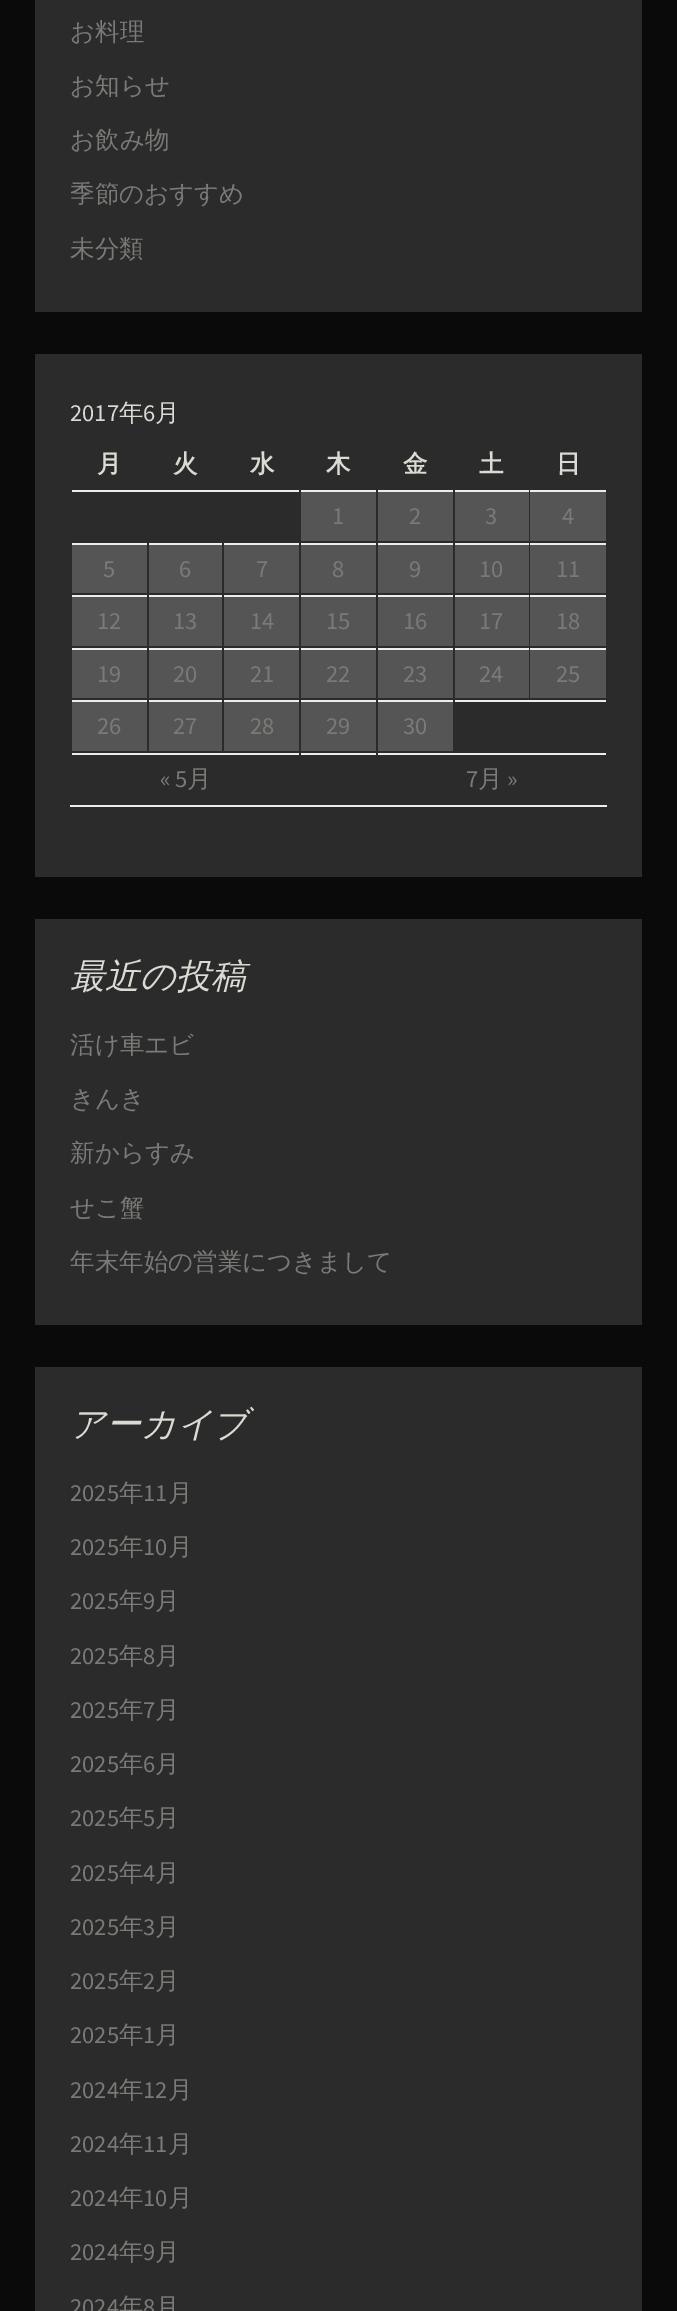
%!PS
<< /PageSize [677 2311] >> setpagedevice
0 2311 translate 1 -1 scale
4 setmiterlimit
0.039 setgray
0 0 677 2311 rectfill
0.165 0.169 0.165 setrgbcolor
35 0 607 312 rectfill
/WenQuanYiZenHei-Medium [24.5 0 0 -24.5 0 0] selectfont
0.478 0.482 0.467 setrgbcolor
70 40 moveto (お料理) show
70 94 moveto (お知らせ) show
70 148 moveto (お飲み物) show
70 202 moveto (季節のおすすめ) show
70 257 moveto (未分類) show
0.165 0.169 0.165 setrgbcolor
35 354 607 523 rectfill
0.929 setgray
70 805 537 2 rectfill
/SourceSansPro-Regular [24.5 0 0 -24.5 0 0] selectfont
0.859 0.855 0.831 setrgbcolor
70 421 moveto (2017) show
/WenQuanYiZenHei-Medium [24.5 0 0 -24.5 0 0] selectfont
119 421 moveto (年) show
/SourceSansPro-Regular [24.5 0 0 -24.5 0 0] selectfont
143 421 moveto (6) show
/WenQuanYiZenHei-Medium [24.5 0 0 -24.5 0 0] selectfont
155 421 moveto (月) show
/WenQuanYiZenHei-Bold [24.5 0 0 -24.5 0 0] selectfont
97 472 moveto (月) show
173 472 moveto (火) show
250 472 moveto (水) show
326 472 moveto (木) show
403 472 moveto (金) show
479 472 moveto (土) show
556 472 moveto (日) show
0.929 setgray
72 490 227 2 rectfill
0.333 setgray
301 492 75 49 rectfill
0.929 setgray
301 490 75 2 rectfill
/SourceSansPro-Regular [24.5 0 0 -24.5 0 0] selectfont
0.478 0.482 0.467 setrgbcolor
332 524 moveto (1) show
0.333 setgray
378 492 75 49 rectfill
0.929 setgray
378 490 75 2 rectfill
0.478 0.482 0.467 setrgbcolor
409 524 moveto (2) show
0.333 setgray
455 492 74 49 rectfill
0.929 setgray
455 490 74 2 rectfill
0.478 0.482 0.467 setrgbcolor
485 524 moveto (3) show
0.333 setgray
530 492 76 49 rectfill
0.929 setgray
530 490 76 2 rectfill
0.478 0.482 0.467 setrgbcolor
562 524 moveto (4) show
0.333 setgray
72 545 75 48 rectfill
0.929 setgray
72 543 75 2 rectfill
0.478 0.482 0.467 setrgbcolor
103 577 moveto (5) show
0.333 setgray
149 545 73 48 rectfill
0.929 setgray
149 543 73 2 rectfill
0.478 0.482 0.467 setrgbcolor
179 577 moveto (6) show
0.333 setgray
224 545 75 48 rectfill
0.929 setgray
224 543 75 2 rectfill
0.478 0.482 0.467 setrgbcolor
256 577 moveto (7) show
0.333 setgray
301 545 75 48 rectfill
0.929 setgray
301 543 75 2 rectfill
0.478 0.482 0.467 setrgbcolor
332 577 moveto (8) show
0.333 setgray
378 545 75 48 rectfill
0.929 setgray
378 543 75 2 rectfill
0.478 0.482 0.467 setrgbcolor
409 577 moveto (9) show
0.333 setgray
455 545 74 48 rectfill
0.929 setgray
455 543 74 2 rectfill
0.478 0.482 0.467 setrgbcolor
479 577 moveto (10) show
0.333 setgray
530 545 76 48 rectfill
0.929 setgray
530 543 76 2 rectfill
0.478 0.482 0.467 setrgbcolor
556 577 moveto (11) show
0.333 setgray
72 597 75 49 rectfill
0.929 setgray
72 595 75 2 rectfill
0.478 0.482 0.467 setrgbcolor
97 629 moveto (12) show
0.333 setgray
149 597 73 49 rectfill
0.929 setgray
149 595 73 2 rectfill
0.478 0.482 0.467 setrgbcolor
173 629 moveto (13) show
0.333 setgray
224 597 75 49 rectfill
0.929 setgray
224 595 75 2 rectfill
0.478 0.482 0.467 setrgbcolor
250 629 moveto (14) show
0.333 setgray
301 597 75 49 rectfill
0.929 setgray
301 595 75 2 rectfill
0.478 0.482 0.467 setrgbcolor
326 629 moveto (15) show
0.333 setgray
378 597 75 49 rectfill
0.929 setgray
378 595 75 2 rectfill
0.478 0.482 0.467 setrgbcolor
403 629 moveto (16) show
0.333 setgray
455 597 74 49 rectfill
0.929 setgray
455 595 74 2 rectfill
0.478 0.482 0.467 setrgbcolor
479 629 moveto (17) show
0.333 setgray
530 597 76 49 rectfill
0.929 setgray
530 595 76 2 rectfill
0.478 0.482 0.467 setrgbcolor
556 629 moveto (18) show
0.333 setgray
72 650 75 48 rectfill
0.929 setgray
72 648 75 2 rectfill
0.478 0.482 0.467 setrgbcolor
97 682 moveto (19) show
0.333 setgray
149 650 73 48 rectfill
0.929 setgray
149 648 73 2 rectfill
0.478 0.482 0.467 setrgbcolor
173 682 moveto (20) show
0.333 setgray
224 650 75 48 rectfill
0.929 setgray
224 648 75 2 rectfill
0.478 0.482 0.467 setrgbcolor
250 682 moveto (21) show
0.333 setgray
301 650 75 48 rectfill
0.929 setgray
301 648 75 2 rectfill
0.478 0.482 0.467 setrgbcolor
326 682 moveto (22) show
0.333 setgray
378 650 75 48 rectfill
0.929 setgray
378 648 75 2 rectfill
0.478 0.482 0.467 setrgbcolor
403 682 moveto (23) show
0.333 setgray
455 650 74 48 rectfill
0.929 setgray
455 648 74 2 rectfill
0.478 0.482 0.467 setrgbcolor
479 682 moveto (24) show
0.333 setgray
530 650 76 48 rectfill
0.929 setgray
530 648 76 2 rectfill
0.478 0.482 0.467 setrgbcolor
556 682 moveto (25) show
0.929 setgray
455 700 151 2 rectfill
0.333 setgray
72 702 75 49 rectfill
0.929 setgray
72 700 75 2 rectfill
0.478 0.482 0.467 setrgbcolor
97 734 moveto (26) show
0.333 setgray
149 702 73 49 rectfill
0.929 setgray
149 700 73 2 rectfill
0.478 0.482 0.467 setrgbcolor
173 734 moveto (27) show
0.333 setgray
224 702 75 49 rectfill
0.929 setgray
224 700 75 2 rectfill
0.478 0.482 0.467 setrgbcolor
250 734 moveto (28) show
0.333 setgray
301 702 75 49 rectfill
0.929 setgray
301 700 75 2 rectfill
0.478 0.482 0.467 setrgbcolor
326 734 moveto (29) show
0.333 setgray
378 702 75 49 rectfill
0.929 setgray
378 700 75 2 rectfill
0.478 0.482 0.467 setrgbcolor
403 734 moveto (30) show
0.929 setgray
301 753 75 2 rectfill
72 753 227 2 rectfill
0.478 0.482 0.467 setrgbcolor
160 787 moveto (« 5) show
/WenQuanYiZenHei-Medium [24.5 0 0 -24.5 0 0] selectfont
187 787 moveto (月) show
0.929 setgray
378 753 228 2 rectfill
/SourceSansPro-Regular [24.5 0 0 -24.5 0 0] selectfont
0.478 0.482 0.467 setrgbcolor
466 787 moveto (7) show
/WenQuanYiZenHei-Medium [24.5 0 0 -24.5 0 0] selectfont
478 787 moveto (月) show
/SourceSansPro-Regular [24.5 0 0 -24.5 0 0] selectfont
507 787 moveto (») show
0.165 0.169 0.165 setrgbcolor
35 919 607 406 rectfill
/WenQuanYiZenHei-MediumItalic [35 0 0 -35 0 0] selectfont
0.859 0.855 0.831 setrgbcolor
70 988 moveto (最近の投稿) show
/WenQuanYiZenHei-Medium [24.5 0 0 -24.5 0 0] selectfont
0.478 0.482 0.467 setrgbcolor
70 1053 moveto (活け車エビ) show
70 1107 moveto (きんき) show
70 1161 moveto (新からすみ) show
70 1216 moveto (せこ蟹) show
70 1270 moveto (年末年始の営業につきまして) show
0.165 0.169 0.165 setrgbcolor
35 1367 607 944 rectfill
/WenQuanYiZenHei-MediumItalic [35 0 0 -35 0 0] selectfont
0.859 0.855 0.831 setrgbcolor
70 1436 moveto (アーカイブ) show
/SourceSansPro-Regular [24.5 0 0 -24.5 0 0] selectfont
0.478 0.482 0.467 setrgbcolor
70 1501 moveto (2025) show
/WenQuanYiZenHei-Medium [24.5 0 0 -24.5 0 0] selectfont
119 1501 moveto (年) show
/SourceSansPro-Regular [24.5 0 0 -24.5 0 0] selectfont
143 1501 moveto (11) show
/WenQuanYiZenHei-Medium [24.5 0 0 -24.5 0 0] selectfont
168 1501 moveto (月) show
/SourceSansPro-Regular [24.5 0 0 -24.5 0 0] selectfont
70 1555 moveto (2025) show
/WenQuanYiZenHei-Medium [24.5 0 0 -24.5 0 0] selectfont
119 1555 moveto (年) show
/SourceSansPro-Regular [24.5 0 0 -24.5 0 0] selectfont
143 1555 moveto (10) show
/WenQuanYiZenHei-Medium [24.5 0 0 -24.5 0 0] selectfont
168 1555 moveto (月) show
/SourceSansPro-Regular [24.5 0 0 -24.5 0 0] selectfont
70 1609 moveto (2025) show
/WenQuanYiZenHei-Medium [24.5 0 0 -24.5 0 0] selectfont
119 1609 moveto (年) show
/SourceSansPro-Regular [24.5 0 0 -24.5 0 0] selectfont
143 1609 moveto (9) show
/WenQuanYiZenHei-Medium [24.5 0 0 -24.5 0 0] selectfont
155 1609 moveto (月) show
/SourceSansPro-Regular [24.5 0 0 -24.5 0 0] selectfont
70 1664 moveto (2025) show
/WenQuanYiZenHei-Medium [24.5 0 0 -24.5 0 0] selectfont
119 1664 moveto (年) show
/SourceSansPro-Regular [24.5 0 0 -24.5 0 0] selectfont
143 1664 moveto (8) show
/WenQuanYiZenHei-Medium [24.5 0 0 -24.5 0 0] selectfont
155 1664 moveto (月) show
/SourceSansPro-Regular [24.5 0 0 -24.5 0 0] selectfont
70 1718 moveto (2025) show
/WenQuanYiZenHei-Medium [24.5 0 0 -24.5 0 0] selectfont
119 1718 moveto (年) show
/SourceSansPro-Regular [24.5 0 0 -24.5 0 0] selectfont
143 1718 moveto (7) show
/WenQuanYiZenHei-Medium [24.5 0 0 -24.5 0 0] selectfont
155 1718 moveto (月) show
/SourceSansPro-Regular [24.5 0 0 -24.5 0 0] selectfont
70 1772 moveto (2025) show
/WenQuanYiZenHei-Medium [24.5 0 0 -24.5 0 0] selectfont
119 1772 moveto (年) show
/SourceSansPro-Regular [24.5 0 0 -24.5 0 0] selectfont
143 1772 moveto (6) show
/WenQuanYiZenHei-Medium [24.5 0 0 -24.5 0 0] selectfont
155 1772 moveto (月) show
/SourceSansPro-Regular [24.5 0 0 -24.5 0 0] selectfont
70 1826 moveto (2025) show
/WenQuanYiZenHei-Medium [24.5 0 0 -24.5 0 0] selectfont
119 1826 moveto (年) show
/SourceSansPro-Regular [24.5 0 0 -24.5 0 0] selectfont
143 1826 moveto (5) show
/WenQuanYiZenHei-Medium [24.5 0 0 -24.5 0 0] selectfont
155 1826 moveto (月) show
/SourceSansPro-Regular [24.5 0 0 -24.5 0 0] selectfont
70 1881 moveto (2025) show
/WenQuanYiZenHei-Medium [24.5 0 0 -24.5 0 0] selectfont
119 1881 moveto (年) show
/SourceSansPro-Regular [24.5 0 0 -24.5 0 0] selectfont
143 1881 moveto (4) show
/WenQuanYiZenHei-Medium [24.5 0 0 -24.5 0 0] selectfont
155 1881 moveto (月) show
/SourceSansPro-Regular [24.5 0 0 -24.5 0 0] selectfont
70 1935 moveto (2025) show
/WenQuanYiZenHei-Medium [24.5 0 0 -24.5 0 0] selectfont
119 1935 moveto (年) show
/SourceSansPro-Regular [24.5 0 0 -24.5 0 0] selectfont
143 1935 moveto (3) show
/WenQuanYiZenHei-Medium [24.5 0 0 -24.5 0 0] selectfont
155 1935 moveto (月) show
/SourceSansPro-Regular [24.5 0 0 -24.5 0 0] selectfont
70 1989 moveto (2025) show
/WenQuanYiZenHei-Medium [24.5 0 0 -24.5 0 0] selectfont
119 1989 moveto (年) show
/SourceSansPro-Regular [24.5 0 0 -24.5 0 0] selectfont
143 1989 moveto (2) show
/WenQuanYiZenHei-Medium [24.5 0 0 -24.5 0 0] selectfont
155 1989 moveto (月) show
/SourceSansPro-Regular [24.5 0 0 -24.5 0 0] selectfont
70 2043 moveto (2025) show
/WenQuanYiZenHei-Medium [24.5 0 0 -24.5 0 0] selectfont
119 2043 moveto (年) show
/SourceSansPro-Regular [24.5 0 0 -24.5 0 0] selectfont
143 2043 moveto (1) show
/WenQuanYiZenHei-Medium [24.5 0 0 -24.5 0 0] selectfont
155 2043 moveto (月) show
/SourceSansPro-Regular [24.5 0 0 -24.5 0 0] selectfont
70 2098 moveto (2024) show
/WenQuanYiZenHei-Medium [24.5 0 0 -24.5 0 0] selectfont
119 2098 moveto (年) show
/SourceSansPro-Regular [24.5 0 0 -24.5 0 0] selectfont
143 2098 moveto (12) show
/WenQuanYiZenHei-Medium [24.5 0 0 -24.5 0 0] selectfont
168 2098 moveto (月) show
/SourceSansPro-Regular [24.5 0 0 -24.5 0 0] selectfont
70 2152 moveto (2024) show
/WenQuanYiZenHei-Medium [24.5 0 0 -24.5 0 0] selectfont
119 2152 moveto (年) show
/SourceSansPro-Regular [24.5 0 0 -24.5 0 0] selectfont
143 2152 moveto (11) show
/WenQuanYiZenHei-Medium [24.5 0 0 -24.5 0 0] selectfont
168 2152 moveto (月) show
/SourceSansPro-Regular [24.5 0 0 -24.5 0 0] selectfont
70 2206 moveto (2024) show
/WenQuanYiZenHei-Medium [24.5 0 0 -24.5 0 0] selectfont
119 2206 moveto (年) show
/SourceSansPro-Regular [24.5 0 0 -24.5 0 0] selectfont
143 2206 moveto (10) show
/WenQuanYiZenHei-Medium [24.5 0 0 -24.5 0 0] selectfont
168 2206 moveto (月) show
/SourceSansPro-Regular [24.5 0 0 -24.5 0 0] selectfont
70 2260 moveto (2024) show
/WenQuanYiZenHei-Medium [24.5 0 0 -24.5 0 0] selectfont
119 2260 moveto (年) show
/SourceSansPro-Regular [24.5 0 0 -24.5 0 0] selectfont
143 2260 moveto (9) show
/WenQuanYiZenHei-Medium [24.5 0 0 -24.5 0 0] selectfont
155 2260 moveto (月) show
/SourceSansPro-Regular [24.5 0 0 -24.5 0 0] selectfont
70 2315 moveto (2024) show
/WenQuanYiZenHei-Medium [24.5 0 0 -24.5 0 0] selectfont
119 2315 moveto (年) show
/SourceSansPro-Regular [24.5 0 0 -24.5 0 0] selectfont
143 2315 moveto (8) show
/WenQuanYiZenHei-Medium [24.5 0 0 -24.5 0 0] selectfont
155 2315 moveto (月) show
showpage
